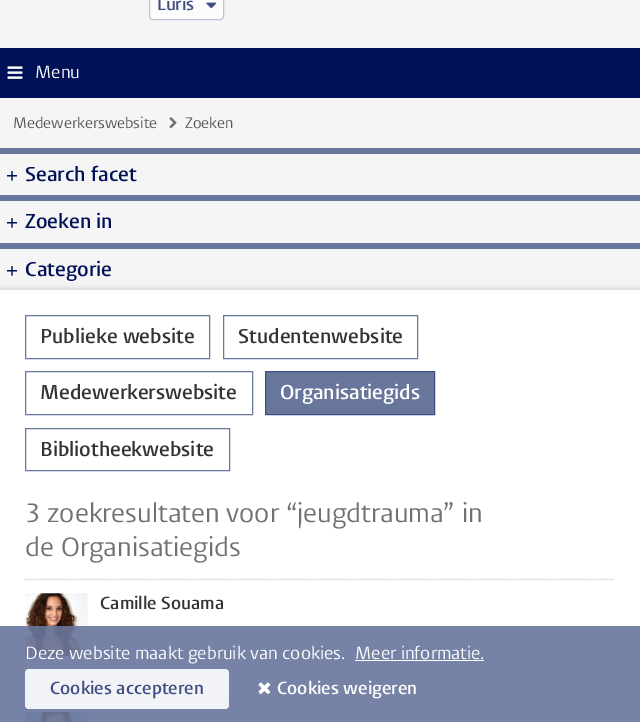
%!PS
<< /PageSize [640 722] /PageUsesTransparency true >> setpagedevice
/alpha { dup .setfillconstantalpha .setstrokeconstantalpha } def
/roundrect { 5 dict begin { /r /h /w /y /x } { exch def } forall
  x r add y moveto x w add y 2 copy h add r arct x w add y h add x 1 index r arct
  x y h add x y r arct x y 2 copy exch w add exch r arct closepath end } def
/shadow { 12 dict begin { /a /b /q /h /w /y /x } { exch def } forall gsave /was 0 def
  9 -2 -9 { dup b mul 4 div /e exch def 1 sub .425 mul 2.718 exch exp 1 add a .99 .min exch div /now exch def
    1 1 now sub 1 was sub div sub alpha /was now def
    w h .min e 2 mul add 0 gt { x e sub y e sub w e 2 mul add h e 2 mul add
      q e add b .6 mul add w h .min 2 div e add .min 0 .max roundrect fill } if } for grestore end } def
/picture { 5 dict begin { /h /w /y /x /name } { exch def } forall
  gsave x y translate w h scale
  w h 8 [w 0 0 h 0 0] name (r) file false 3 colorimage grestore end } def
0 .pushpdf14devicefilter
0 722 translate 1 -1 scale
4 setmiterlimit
0.961 setgray
0 0 640 722 rectfill
0.988 setgray
149.5 -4.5 74 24 3.5 roundrect gsave fill grestore
0.749 0.765 0.835 setrgbcolor
stroke
/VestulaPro-SemiBold [17.5 0 0 -17.5 0 0] selectfont
0.251 0.302 0.51 setrgbcolor
157 10 moveto (Luris) show
(img1.rgb) 206 2 11 7 picture
0 0.067 0.345 setrgbcolor
0 48 640 50 rectfill
(img2.rgb) 7 66 16 13 picture
/VestulaPro-Regular [17.5 0 0 -17.5 0 0] selectfont
1 setgray
35 78 moveto (Menu) show
/VestulaPro-Regular [15 0 0 -15 0 0] selectfont
0.325 setgray
13 128 moveto (Medewerkerswebsite) show
(img3.rgb) 169 117 8 12 picture
185 128 moveto (Zoeken) show
0.408 0.463 0.612 setrgbcolor
0 148 640 6 rectfill
/VestulaPro-SemiBold [20 0 0 -20 0 0] selectfont
0 0.067 0.345 setrgbcolor
6 181 moveto (+) show
25 181 moveto (Search facet) show
0.408 0.463 0.612 setrgbcolor
0 195 640 6 rectfill
0 0.067 0.345 setrgbcolor
6 228 moveto (+) show
25 228 moveto (Zoeken in) show
0.408 0.463 0.612 setrgbcolor
0 243 640 6 rectfill
0 0.067 0.345 setrgbcolor
6 276 moveto (+) show
25 276 moveto (Categorie) show
0.471 0.431 0.392 setrgbcolor
-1 289 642 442 0 3 0.3 shadow
1 setgray
0 290 640 432 rectfill
0.408 0.463 0.612 setrgbcolor
25.5 315.5 184 43 rectstroke
0.2 setgray
40 343 moveto (Publieke website) show
0.408 0.463 0.612 setrgbcolor
223.5 315.5 194 43 rectstroke
0.2 setgray
238 343 moveto (Studentenwebsite) show
0.408 0.463 0.612 setrgbcolor
25.5 371.5 227 43 rectstroke
0.2 setgray
40 399 moveto (Medewerkerswebsite) show
0.408 0.463 0.612 setrgbcolor
newpath 265.5 371.5 moveto 434.5 371.5 lineto 434.5 414.5 lineto 265.5 414.5 lineto closepath gsave fill grestore
0.251 0.302 0.51 setrgbcolor
stroke
1 setgray
280 399 moveto (Organisatiegids) show
0.408 0.463 0.612 setrgbcolor
25.5 428.5 204 42 rectstroke
0.2 setgray
40 456 moveto (Bibliotheekwebsite) show
0.8 setgray
1.2 setlinewidth
[1.25 1.25] 0 setdash
newpath 25 579.5 moveto 615 579.5 lineto stroke
/VestulaPro-Regular [26.25 0 0 -26.25 0 0] selectfont
0.439 setgray
25 522 moveto (3 zoekresultaten voor “jeugdtrauma” in) show
25 556 moveto (de Organisatiegids) show
0.8 setgray
newpath 25 698 moveto 615 698 lineto stroke
(img4.rgb) 25 593 63 63 picture
/VestulaPro-SemiBold [17.5 0 0 -17.5 0 0] selectfont
0.2 setgray
100 609 moveto (Camille Souama) show
(img5.rgb) 25 712 63 10 picture
0.9 alpha
0.408 0.463 0.612 setrgbcolor
0 626 640 96 rectfill
/VestulaPro-Regular [17.5 0 0 -17.5 0 0] selectfont
1 alpha
1 setgray
25 659 moveto (Deze website maakt gebruik van cookies.) show
355 659 moveto (Meer informatie.) show
355 660 129 1 rectfill
0.9 alpha
25 669 204 40 4 roundrect fill
/VestulaPro-SemiBold [17.5 0 0 -17.5 0 0] selectfont
1 alpha
0.251 0.302 0.51 setrgbcolor
50 694 moveto (Cookies accepteren) show
(img6.rgb) 258 682 13 12 picture
1 setgray
277 694 moveto (Cookies weigeren) show
.poppdf14devicefilter showpage
